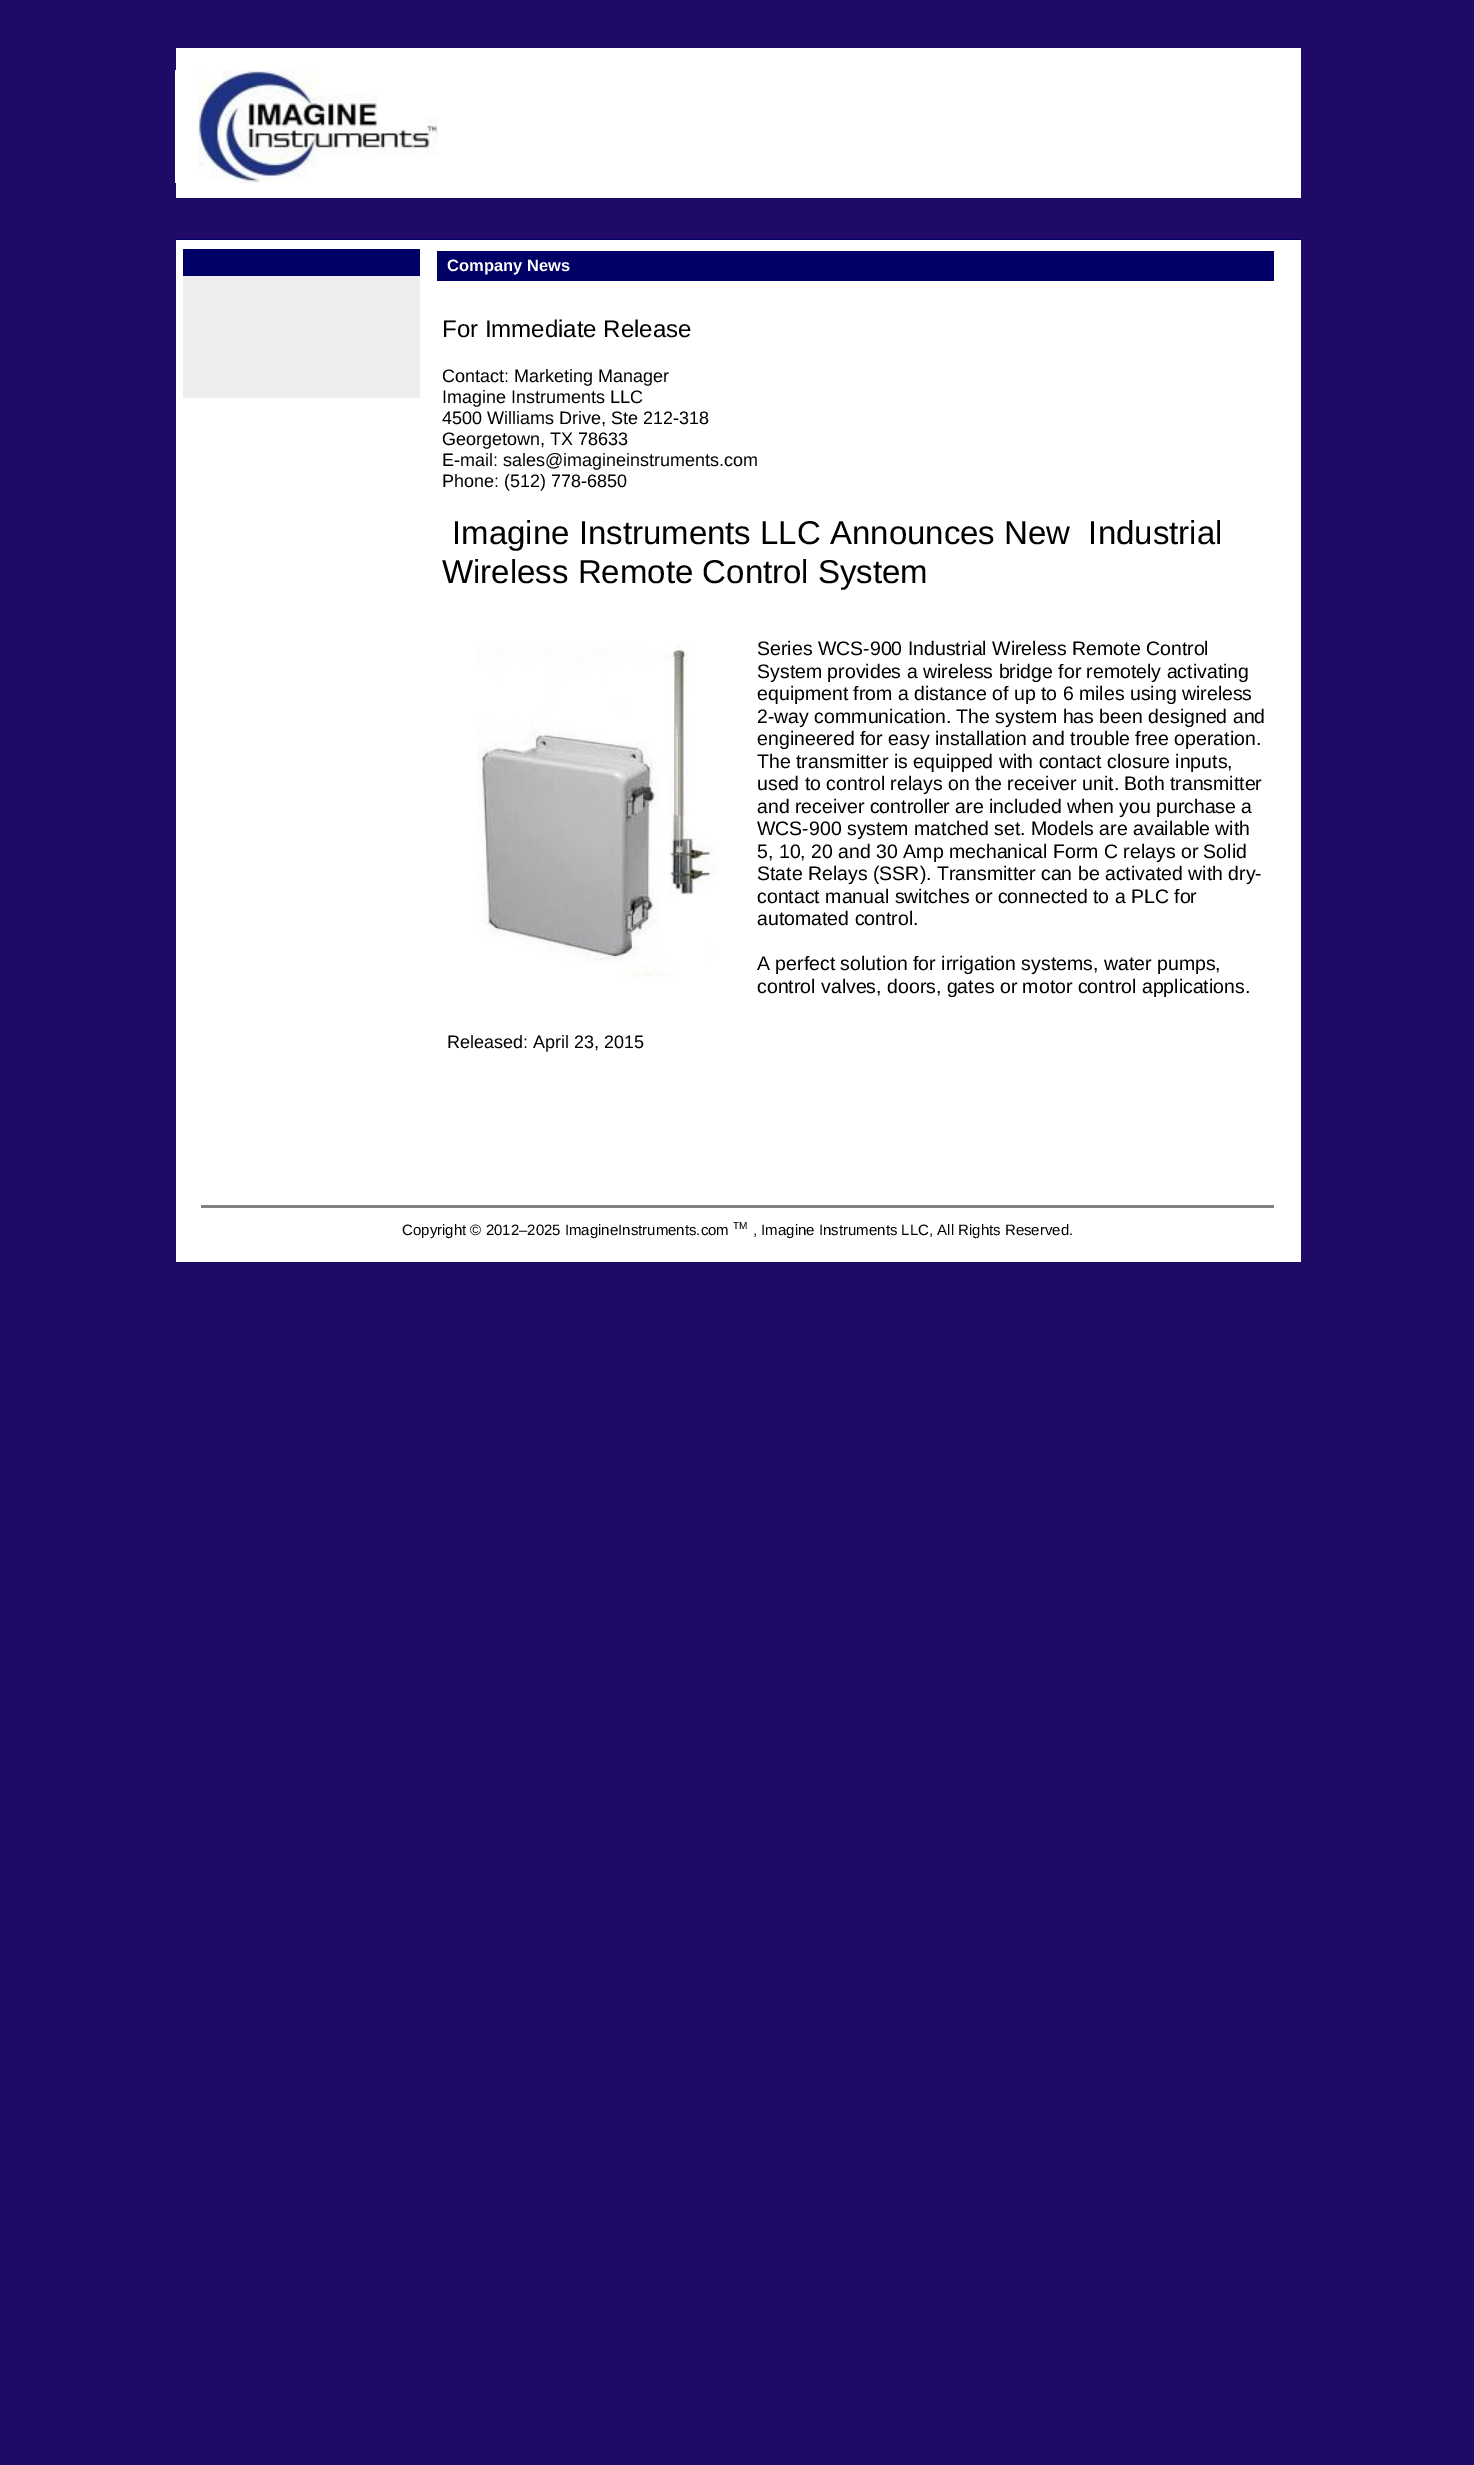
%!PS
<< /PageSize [1474 2465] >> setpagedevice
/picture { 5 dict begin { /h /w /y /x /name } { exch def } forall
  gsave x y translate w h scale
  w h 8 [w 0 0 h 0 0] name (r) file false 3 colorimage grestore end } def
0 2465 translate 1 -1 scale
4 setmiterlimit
0.122 0.039 0.408 setrgbcolor
0 0 1474 2465 rectfill
1 setgray
176 48 1125 23 rectfill
175 70 23 113 rectfill
(img1.rgb) 198 70 308 113 picture
505 71 796 112 rectfill
176 183 1125 15 rectfill
0 0 0.4 setrgbcolor
176 239 1125 1 rectfill
1 setgray
176 240 1125 1022 rectfill
0 0 0.4 setrgbcolor
183 249 237 27 rectfill
0.933 setgray
183 276 237 122 rectfill
0 0 0.4 setrgbcolor
437 251 837 30 rectfill
/LiberationSans-Bold [16.5 0 0 -16.5 0 0] selectfont
1 setgray
447 271 moveto (Company News) show
/LiberationSans-Regular [24 0 0 -24 0 0] selectfont
0 setgray
442 337 moveto (For Immediate Release) show
/LiberationSans-Regular [18 0 0 -18 0 0] selectfont
442 382 moveto (Contact: Marketing Manager) show
442 403 moveto (Imagine Instruments LLC) show
442 424 moveto (4500 Williams Drive, Ste 212-318) show
442 445 moveto (Georgetown, TX 78633) show
442 466 moveto (E-mail: sales@imagineinstruments.com) show
442 487 moveto (Phone: \(512\) 778-6850) show
/LiberationSans-Regular [33 0 0 -33 0 0] selectfont
452 544 moveto (Imagine Instruments LLC Announces New  Industrial) show
442 583 moveto (Wireless Remote Control System) show
(img2.rgb) 477 642 242 338 picture
/LiberationSans-Regular [19.5 0 0 -19.5 0 0] selectfont
757 655 moveto (Series WCS-900 Industrial Wireless Remote Control) show
757 678 moveto (System provides a wireless bridge for remotely activating) show
757 700 moveto (equipment from a distance of up to 6 miles using wireless) show
757 723 moveto (2-way communication. The system has been designed and) show
757 745 moveto (engineered for easy installation and trouble free operation.) show
757 768 moveto (The transmitter is equipped with contact closure inputs,) show
757 790 moveto (used to control relays on the receiver unit. Both transmitter) show
757 813 moveto (and receiver controller are included when you purchase a) show
757 835 moveto (WCS-900 system matched set. Models are available with) show
757 858 moveto (5, 10, 20 and 30 Amp mechanical Form C relays or Solid) show
757 880 moveto (State Relays \(SSR\). Transmitter can be activated with dry-) show
757 903 moveto (contact manual switches or connected to a PLC for) show
757 925 moveto (automated control.) show
757 970 moveto (A perfect solution for irrigation systems, water pumps,) show
757 993 moveto (control valves, doors, gates or motor control applications.) show
/LiberationSans-Regular [18 0 0 -18 0 0] selectfont
447 1048 moveto (Released: April 23, 2015) show
0.502 setgray
203 1207 1069 1 rectfill
201 1205 1073 2 rectfill
1272 1205 2 3 rectfill
201 1205 2 3 rectfill
/LiberationSans-Regular [15 0 0 -15 0 0] selectfont
0 setgray
402 1235 moveto (Copyright © 2012–2025 ImagineInstruments.com) show
/LiberationSans-Regular [10 0 0 -10 0 0] selectfont
733 1229 moveto (TM) show
/LiberationSans-Regular [15 0 0 -15 0 0] selectfont
753 1235 moveto (, Imagine Instruments LLC, All Rights Reserved.) show
showpage
